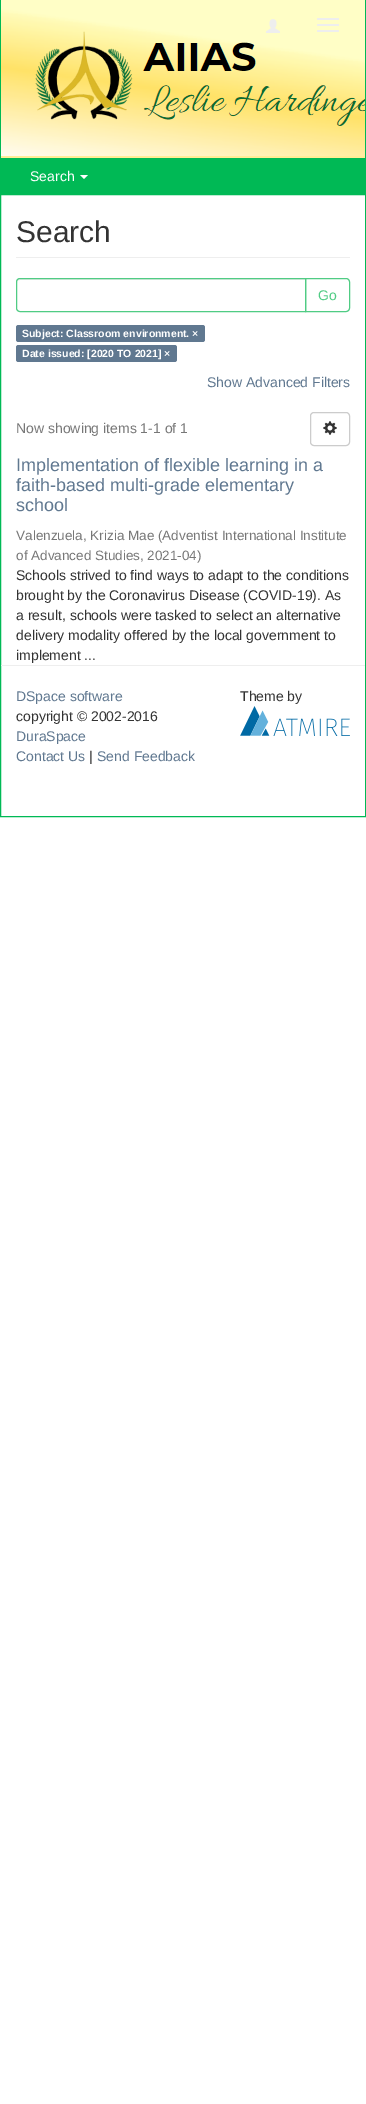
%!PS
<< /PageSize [366 2104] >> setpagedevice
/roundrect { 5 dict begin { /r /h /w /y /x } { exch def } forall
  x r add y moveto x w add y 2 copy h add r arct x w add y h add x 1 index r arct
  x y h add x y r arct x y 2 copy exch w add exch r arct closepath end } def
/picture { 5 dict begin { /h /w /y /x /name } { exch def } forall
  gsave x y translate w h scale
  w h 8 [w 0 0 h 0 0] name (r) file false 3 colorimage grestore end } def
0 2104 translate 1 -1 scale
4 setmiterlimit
1 setgray
0 0 366 2104 rectfill
(img1.rgb) 1 0 364 158 picture
0 0.725 0.333 setrgbcolor
365 0 1 158 rectfill
0 0 1 158 rectfill
(img2.rgb) 266 19 14 14 picture
0.933 setgray
317 18 22 2 1 roundrect fill
317 24 22 2 1 roundrect fill
317 30 22 2 1 roundrect fill
0 0.725 0.333 setrgbcolor
0 158 366 36 rectfill
/LiberationSans-Regular [14 0 0 -14 0 0] selectfont
1 setgray
30 181 moveto (Search) show
newpath 80 175 moveto 88 175 lineto 84 179 lineto closepath fill
0 0.725 0.333 setrgbcolor
0.5 194.5 365 622 rectstroke
0.933 setgray
16 257 334 1 rectfill
/LiberationSans-Regular [30 0 0 -30 0 0] selectfont
0.2 setgray
16 242 moveto (Search) show
0.314 0.8 0.518 setrgbcolor
newpath 305.5 278.5 moveto 346 278.5 lineto 348 278.5 349.5 280 349.5 282 curveto 349.5 308 lineto 349.5 310 348 311.5 346 311.5 curveto 305.5 311.5 lineto closepath stroke
1 setgray
newpath 20 278 moveto 306 278 lineto 306 312 lineto 20 312 lineto 18 312 16 310 16 308 curveto 16 282 lineto 16 280 18 278 20 278 curveto closepath fill
0.925 setgray
newpath 20 280 moveto 305 280 lineto 305 279 lineto 20 279 lineto 18 279 17 281 17 283 curveto 17 281 18 280 20 280 curveto closepath fill
0.314 0.8 0.518 setrgbcolor
newpath 20 278.5 moveto 305.5 278.5 lineto 305.5 311.5 lineto 20 311.5 lineto 18 311.5 16.5 310 16.5 308 curveto 16.5 282 lineto 16.5 280 18 278.5 20 278.5 curveto closepath stroke
/LiberationSans-Regular [14 0 0 -14 0 0] selectfont
318 300 moveto (Go) show
0.376 0.471 0.565 setrgbcolor
16 325 189 17 2.5 roundrect fill
/LiberationSans-Bold [10.5 0 0 -10.5 0 0] selectfont
1 setgray
22 337 moveto (Subject: Classroom environment. ×) show
0.376 0.471 0.565 setrgbcolor
16 345 161 17 2.5 roundrect fill
1 setgray
22 357 moveto (Date issued: [2020 TO 2021] ×) show
/LiberationSans-Regular [14 0 0 -14 0 0] selectfont
0.376 0.471 0.565 setrgbcolor
207 387 moveto (Show Advanced Filters) show
0.467 setgray
16 433 moveto (Now showing items 1-1 of 1) show
0.8 setgray
310.5 412.5 39 33 3.5 roundrect stroke
(img3.rgb) 323 421 14 14 picture
/LiberationSans-Regular [18 0 0 -18 0 0] selectfont
0.376 0.471 0.565 setrgbcolor
16 471 moveto (Implementation of flexible learning in a) show
16 491 moveto (faith-based multi-grade elementary) show
16 511 moveto (school) show
/LiberationSans-Regular [13.5 0 0 -13.5 0 0] selectfont
0.467 setgray
16 540 moveto (Valenzuela, Krizia Mae \(Adventist International Institute) show
16 560 moveto (of Advanced Studies, 2021-04\)) show
/LiberationSans-Regular [14 0 0 -14 0 0] selectfont
0.2 setgray
16 580 moveto (Schools strived to find ways to adapt to the conditions) show
16 600 moveto (brought by the Coronavirus Disease \(COVID-19\). As) show
16 620 moveto (a result, schools were tasked to select an alternative) show
16 640 moveto (delivery modality offered by the local government to) show
16 660 moveto (implement ...) show
0.933 setgray
1 665 364 1 rectfill
0.376 0.471 0.565 setrgbcolor
16 701 moveto (DSpace software) show
0.2 setgray
16 721 moveto (copyright © 2002-2016) show
0.376 0.471 0.565 setrgbcolor
16 741 moveto (DuraSpace) show
16 761 moveto (Contact Us) show
0.2 setgray
89 761 moveto (|) show
0.376 0.471 0.565 setrgbcolor
97 761 moveto (Send Feedback) show
0.2 setgray
240 701 moveto (Theme by) show
(img4.rgb) 240 706 110 30 picture
showpage
